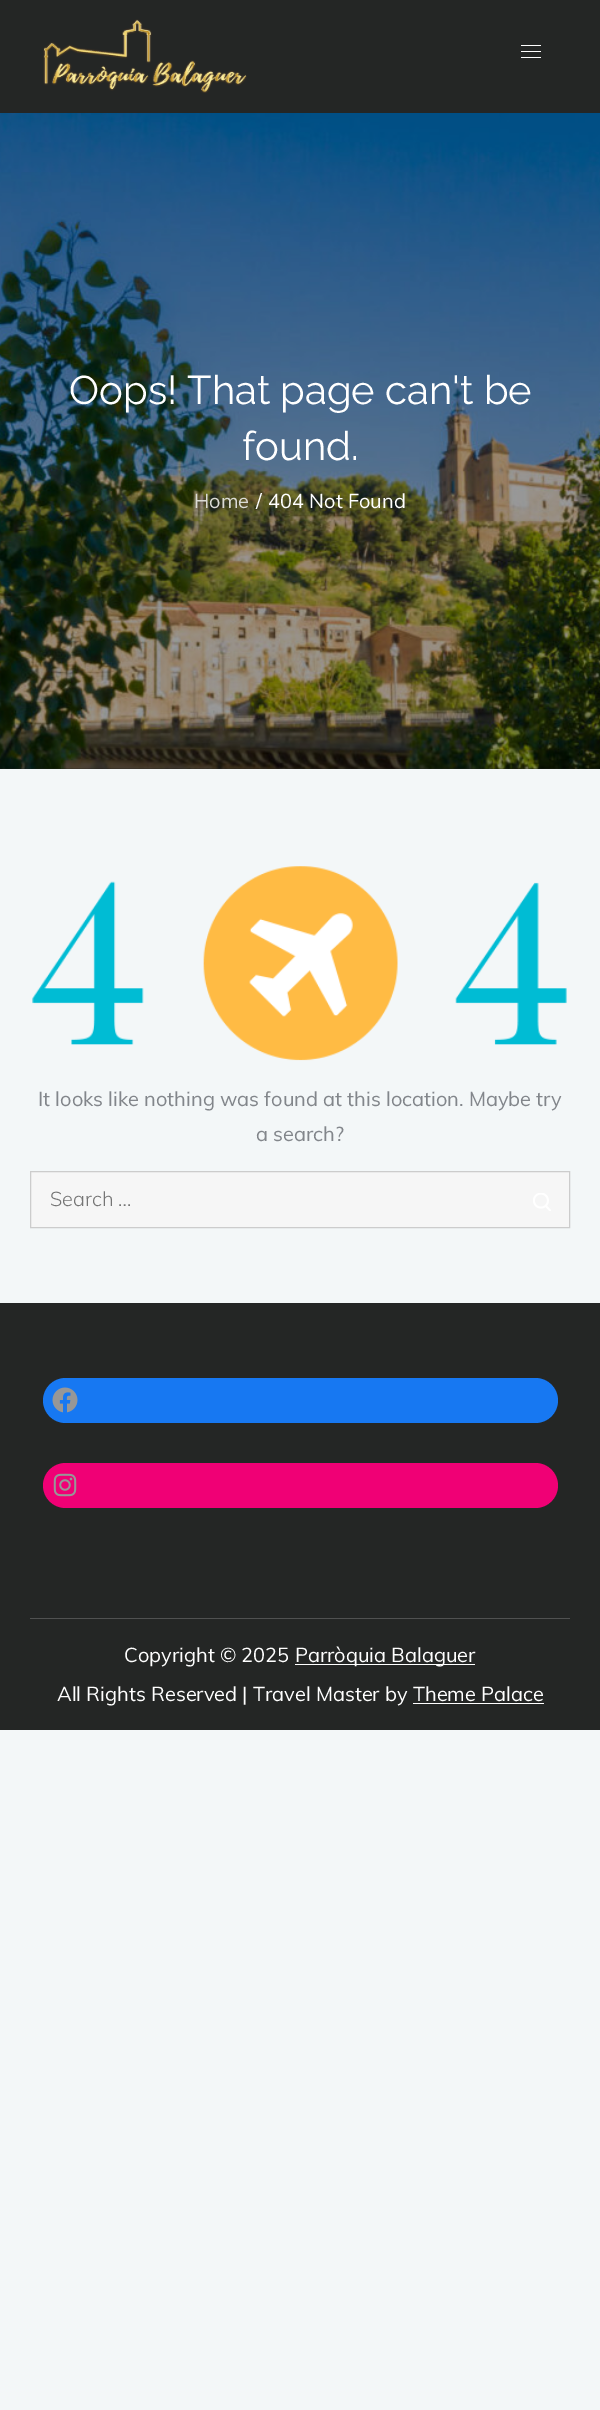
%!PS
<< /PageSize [600 2410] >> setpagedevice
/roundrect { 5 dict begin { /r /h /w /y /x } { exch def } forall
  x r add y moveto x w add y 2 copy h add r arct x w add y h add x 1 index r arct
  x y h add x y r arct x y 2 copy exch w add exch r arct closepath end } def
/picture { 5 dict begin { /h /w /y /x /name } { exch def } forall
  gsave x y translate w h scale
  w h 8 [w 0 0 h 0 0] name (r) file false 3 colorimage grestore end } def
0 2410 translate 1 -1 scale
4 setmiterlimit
0.953 0.969 0.973 setrgbcolor
0 0 600 2410 rectfill
0.141 0.149 0.145 setrgbcolor
0 0 600 113 rectfill
(img1.rgb) 43 19 204 74 picture
1 setgray
521 45 20 1 rectfill
521 51 20 1 rectfill
521 57 20 1 rectfill
(img2.rgb) 0 113 600 656 picture
/Raleway-Thin [40 0 0 -40 0 0] selectfont
69 404 moveto (Oops! That page can't be) show
242 460 moveto (found.) show
/Muli-Regular [20 0 0 -20 0 0] selectfont
0.859 0.859 0.835 setrgbcolor
194 508 moveto (Home) show
1 setgray
256 508 moveto (/) show
268 508 moveto (404 Not Found) show
(img3.rgb) 32 866 535 195 picture
0.51 0.525 0.545 setrgbcolor
38 1106 moveto (It looks like nothing was found at this location. Maybe try) show
256 1141 moveto (a search?) show
0.965 setgray
newpath 30.5 1171.5 moveto 569.5 1171.5 lineto 569.5 1227.5 lineto 30.5 1227.5 lineto closepath gsave fill grestore
0.8 setgray
stroke
/Muli-Light [20 0 0 -20 0 0] selectfont
0.459 setgray
50 1206 moveto (Search …) show
(img4.rgb) 533 1193 18 18 picture
0.141 0.149 0.145 setrgbcolor
0 1303 600 427 rectfill
0.09 0.471 0.949 setrgbcolor
43 1378 515 45 22.5 roundrect fill
(img5.rgb) 52 1387 26 26 picture
0.941 0 0.459 setrgbcolor
43 1463 515 45 22.5 roundrect fill
(img6.rgb) 53 1473 24 24 picture
0.314 0.318 0.318 setrgbcolor
30 1618 540 1 rectfill
/Muli-Regular [20 0 0 -20 0 0] selectfont
1 setgray
124 1662 moveto (Copyright © 2025) show
295 1664 180 1 rectfill
295 1662 moveto (Parròquia Balaguer) show
57 1701 moveto (All Rights Reserved | Travel Master by Theme Palace) show
413 1703 131 1 rectfill
showpage
